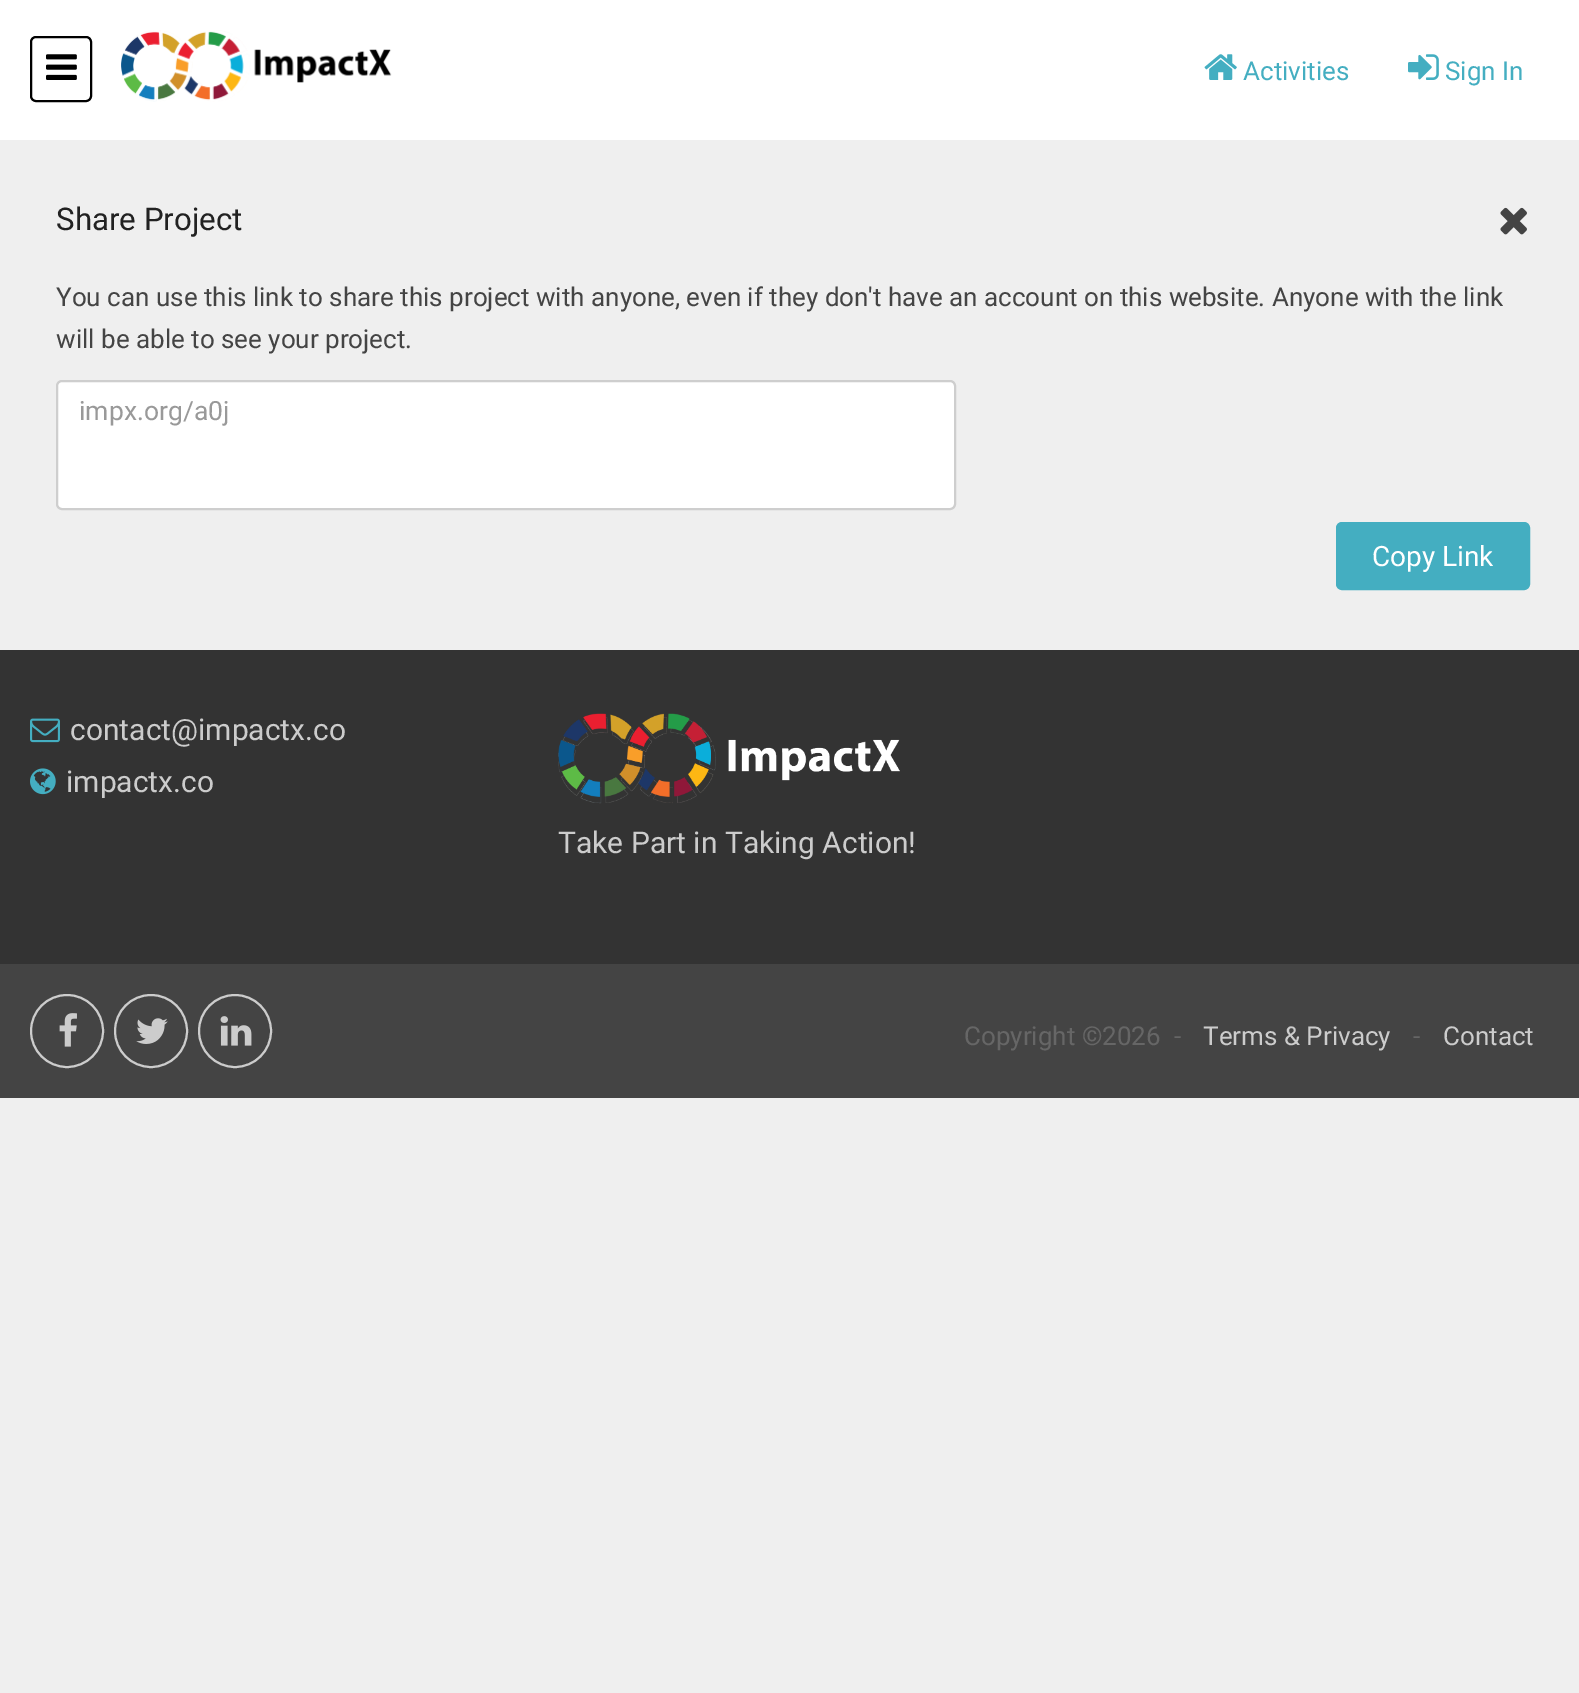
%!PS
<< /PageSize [1579 1693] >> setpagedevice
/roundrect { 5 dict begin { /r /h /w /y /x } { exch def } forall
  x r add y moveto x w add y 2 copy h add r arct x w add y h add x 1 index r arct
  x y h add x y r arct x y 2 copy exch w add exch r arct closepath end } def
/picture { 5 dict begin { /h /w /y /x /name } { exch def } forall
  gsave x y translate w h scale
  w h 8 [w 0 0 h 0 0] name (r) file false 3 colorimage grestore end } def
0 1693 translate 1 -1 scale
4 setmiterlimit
0.937 setgray
0 0 1579 1693 rectfill
1 setgray
0 0 1579 140 rectfill
0 setgray
2 setlinewidth
31 37 60 64 5 roundrect stroke
(img1.rgb) 46 54 31 26 picture
(img2.rgb) 121 30 271 72 picture
(img3.rgb) 1204 54 33 26 picture
/Roboto-Regular [26 0 0 -26 0 0] selectfont
0.267 0.682 0.757 setrgbcolor
1243 80 moveto (Activities) show
(img4.rgb) 1408 54 31 26 picture
1445 80 moveto (Sign In) show
/Roboto-Regular [31.25 0 0 -31.25 0 0] selectfont
0.133 setgray
56 230 moveto (Share Project) show
(img5.rgb) 1500 207 27 28 picture
/Roboto-Regular [26 0 0 -26 0 0] selectfont
0.267 setgray
56 306 moveto (You can use this link to share this project with anyone, even if they don't have an account on this website. Anyone with the link) show
56 348 moveto (will be able to see your project.) show
1 setgray
57 381 898 128 5 roundrect gsave fill grestore
0.808 setgray
stroke
/Roboto-Regular [26.5 0 0 -26.5 0 0] selectfont
0.6 setgray
79 420 moveto (impx.org/a0j) show
0.267 0.682 0.757 setrgbcolor
1338 524 190 64 4 roundrect gsave fill grestore
4 setlinewidth
stroke
/Roboto-Regular [28 0 0 -28 0 0] selectfont
1 setgray
1372 566 moveto (Copy Link) show
0.2 setgray
0 650 1579 314 rectfill
(img6.rgb) 30 718 30 25 picture
/Roboto-Regular [30 0 0 -30 0 0] selectfont
0.8 setgray
70 740 moveto (contact@impactx.co) show
(img7.rgb) 30 768 26 27 picture
66 792 moveto (impactx.co) show
(img8.rgb) 558 713 342 91 picture
558 853 moveto (Take Part in Taking Action!) show
0.267 setgray
0 964 1579 134 rectfill
0.8 setgray
2 setlinewidth
newpath 67 1031 36 0 360 arc closepath stroke
(img9.rgb) 59 1013 18 34 picture
newpath 151 1031 36 0 360 arc closepath stroke
(img10.rgb) 136 1018 32 26 picture
newpath 235 1031 36 0 360 arc closepath stroke
(img11.rgb) 220 1016 32 30 picture
/Roboto-Regular [26 0 0 -26 0 0] selectfont
0.4 setgray
964 1045 moveto (Copyright ©2026) show
1174 1045 moveto (-) show
0.8 setgray
1203 1045 moveto (Terms & Privacy) show
0.4 setgray
1413 1045 moveto (-) show
0.8 setgray
1443 1045 moveto (Contact) show
showpage
